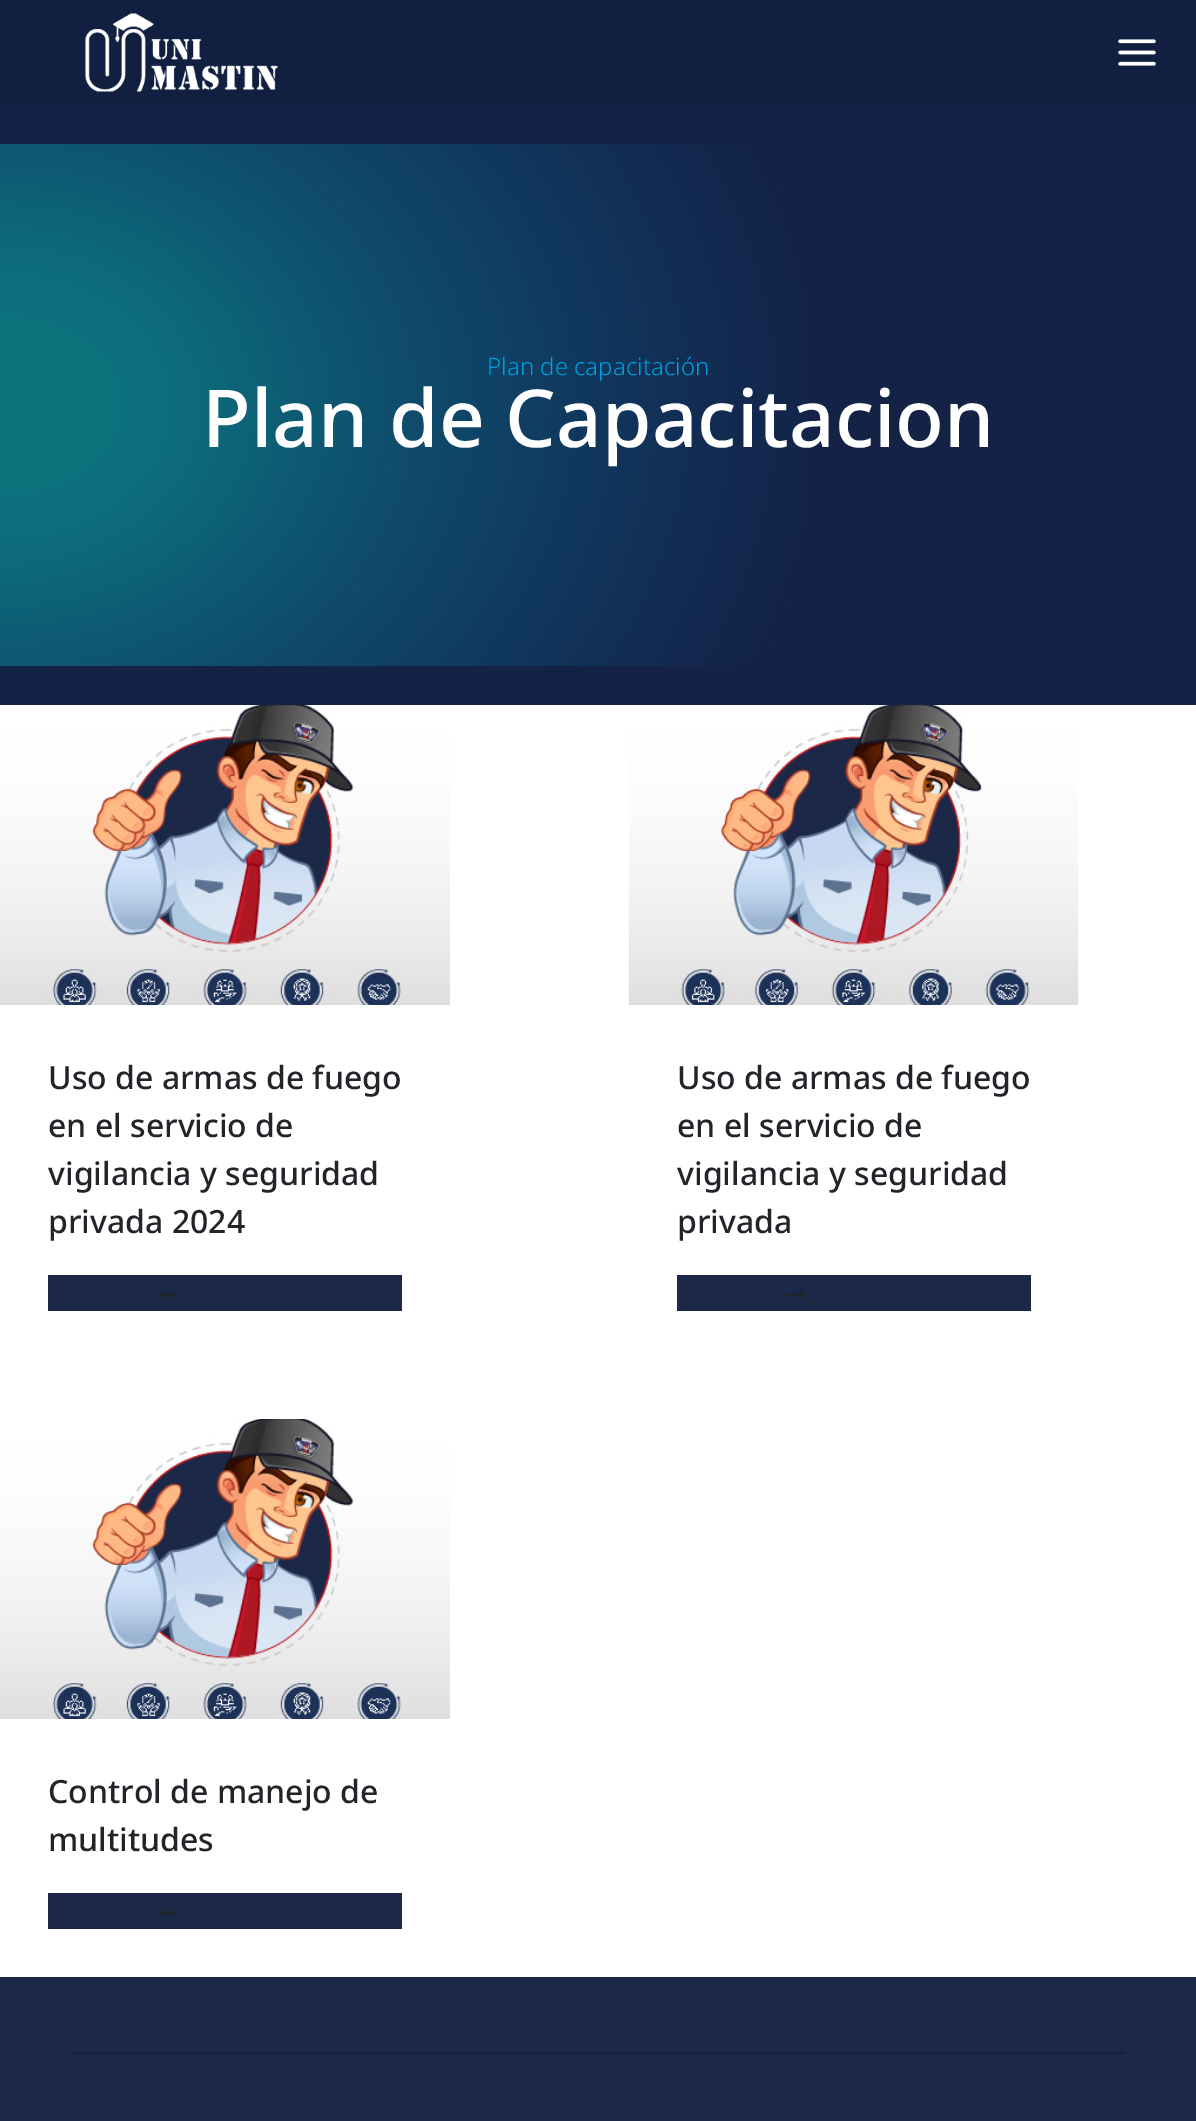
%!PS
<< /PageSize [1196 2121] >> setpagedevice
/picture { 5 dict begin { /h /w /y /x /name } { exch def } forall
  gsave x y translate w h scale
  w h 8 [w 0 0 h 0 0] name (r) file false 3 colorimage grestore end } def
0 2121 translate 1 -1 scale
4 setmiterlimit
1 setgray
0 0 1196 2121 rectfill
0.067 0.125 0.251 setrgbcolor
0 0 1196 105 rectfill
(img1.rgb) 85 13 193 79 picture
(img2.rgb) 1118 39 38 27 picture
0.075 0.133 0.271 setrgbcolor
0 105 1196 600 rectfill
(img3.rgb) 0 144 807 522 picture
/NotoSans-Light [24 0 0 -24 0 0] selectfont
0 0.627 0.871 setrgbcolor
487 375 moveto (Plan de capacitación) show
/NotoSans-Medium [80 0 0 -80 0 0] selectfont
1 setgray
202 447 moveto (Plan de Capacitacion) show
(img4.rgb) 0 705 450 300 picture
/NotoSans-Medium [32 0 0 -32 0 0] selectfont
0.129 0.145 0.161 setrgbcolor
48 1089 moveto (Uso de armas de fuego) show
48 1137 moveto (en el servicio de) show
48 1185 moveto (vigilancia y seguridad) show
48 1233 moveto (privada 2024) show
0.11 0.157 0.282 setrgbcolor
48 1275 354 36 rectfill
(img5.rgb) 158 1291 18 8 picture
(img6.rgb) 628 705 451 300 picture
0.129 0.145 0.161 setrgbcolor
677 1089 moveto (Uso de armas de fuego) show
677 1137 moveto (en el servicio de) show
677 1185 moveto (vigilancia y seguridad) show
677 1233 moveto (privada) show
0.11 0.157 0.282 setrgbcolor
677 1275 354 36 rectfill
(img7.rgb) 786 1291 19 8 picture
(img4.rgb) 0 1419 450 300 picture
0.129 0.145 0.161 setrgbcolor
48 1803 moveto (Control de manejo de) show
48 1851 moveto (multitudes) show
0.11 0.157 0.282 setrgbcolor
48 1893 354 36 rectfill
(img5.rgb) 158 1909 18 8 picture
0 1977 1196 144 rectfill
0.09 0.125 0.227 setrgbcolor
72 2052 1053 2 rectfill
showpage
